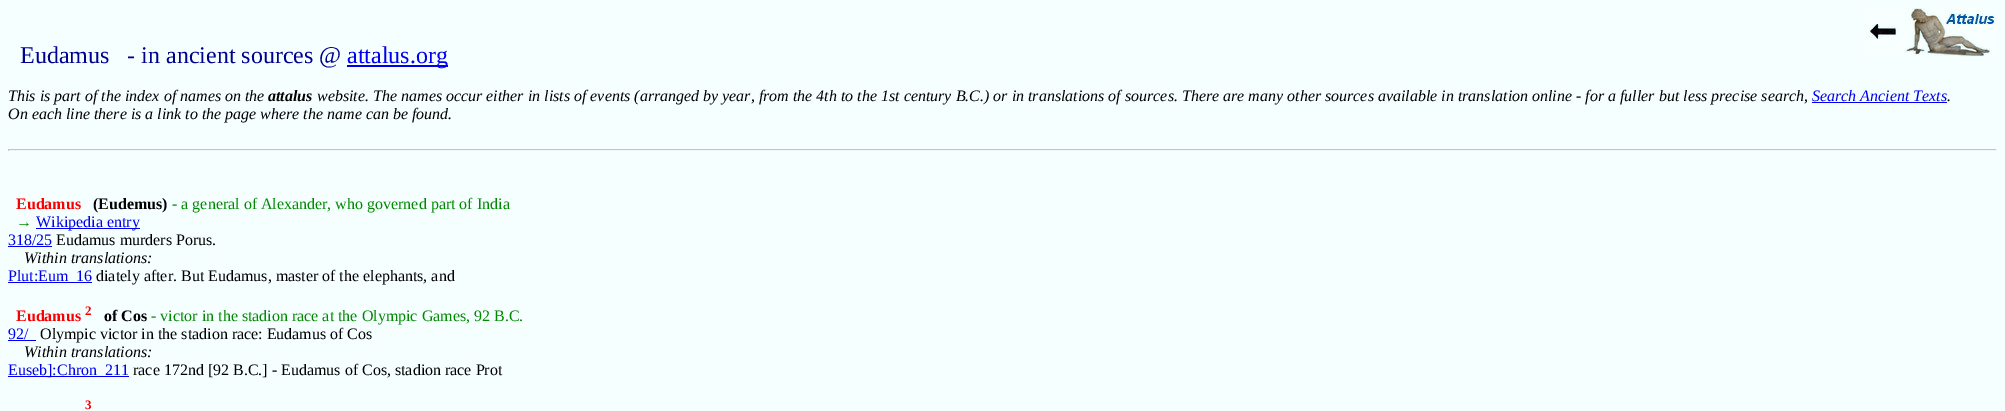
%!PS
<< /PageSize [2005 411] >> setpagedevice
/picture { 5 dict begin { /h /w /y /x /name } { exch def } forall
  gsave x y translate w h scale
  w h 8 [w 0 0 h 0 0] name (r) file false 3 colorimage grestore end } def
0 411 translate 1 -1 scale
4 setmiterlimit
0.965 1 1 setrgbcolor
0 0 2005 411 rectfill
/LiberationSerif-Regular [24 0 0 -24 0 0] selectfont
0 0 0.565 setrgbcolor
20 63 moveto (Eudamus   - in ancient sources @) show
0 0 0.933 setrgbcolor
347 65 101 2 rectfill
347 63 moveto (attalus.org) show
(img1.rgb) 1864 8 133 49 picture
/LiberationSerif-Italic [16 0 0 -16 0 0] selectfont
0 setgray
8 101 moveto (This is part of the index of names on the) show
/LiberationSerif-BoldItalic [16 0 0 -16 0 0] selectfont
268 101 moveto (attalus) show
/LiberationSerif-Italic [16 0 0 -16 0 0] selectfont
317 101 moveto (website. The names occur either in lists of events \(arranged by year, from the 4th to the 1st century B.C.\) or in translations of sources. There are many other sources available in translation online - for a fuller but less precise search,) show
0 0 0.933 setrgbcolor
1812 101 moveto (Search Ancient Texts) show
0 setgray
1947 101 moveto (.) show
0 0 0.933 setrgbcolor
1812 102 135 1 rectfill
0 setgray
8 119 moveto (On each line there is a link to the page where the name can be found.) show
0.761 0.773 0.773 setrgbcolor
8 149 1989 1 rectfill
0.945 0.961 0.961 setrgbcolor
1996 149 1 2 rectfill
8 150 1989 1 rectfill
0.761 0.773 0.773 setrgbcolor
8 149 1 2 rectfill
/LiberationSerif-Bold [16 0 0 -16 0 0] selectfont
0.984 0 0 setrgbcolor
16 209 moveto (Eudamus) show
0 setgray
93 209 moveto (\(Eudemus\)) show
/LiberationSerif-Regular [16 0 0 -16 0 0] selectfont
0 0.533 0 setrgbcolor
172 209 moveto (- a general of Alexander, who governed part of India) show
16 227 moveto (→) show
0 0 0.933 setrgbcolor
36 228 104 1 rectfill
36 227 moveto (Wikipedia entry) show
8 245 moveto (318/25) show
8 246 44 1 rectfill
0 setgray
56 245 moveto (Eudamus murders Porus.) show
/LiberationSerif-Italic [16 0 0 -16 0 0] selectfont
24 263 moveto (Within translations:) show
0 0 0.933 setrgbcolor
8 282 84 1 rectfill
/LiberationSerif-Regular [16 0 0 -16 0 0] selectfont
8 281 moveto (Plut:Eum_16) show
0 setgray
96 281 moveto (diately after. But Eudamus, master of the elephants, and) show
/LiberationSerif-Bold [16 0 0 -16 0 0] selectfont
0.984 0 0 setrgbcolor
16 321 moveto (Eudamus) show
/LiberationSerif-Bold [13 0 0 -13 0 0] selectfont
85 315 moveto (2) show
/LiberationSerif-Bold [16 0 0 -16 0 0] selectfont
0 setgray
104 321 moveto (of Cos) show
/LiberationSerif-Regular [16 0 0 -16 0 0] selectfont
0 0.533 0 setrgbcolor
151 321 moveto (- victor in the stadion race at the Olympic Games, 92 B.C.) show
0 0 0.933 setrgbcolor
8 339 moveto (92/) show
8 340 28 1 rectfill
0 setgray
40 339 moveto (Olympic victor in the stadion race: Eudamus of Cos) show
/LiberationSerif-Italic [16 0 0 -16 0 0] selectfont
24 357 moveto (Within translations:) show
0 0 0.933 setrgbcolor
8 376 121 1 rectfill
/LiberationSerif-Regular [16 0 0 -16 0 0] selectfont
8 375 moveto (Euseb]:Chron_211) show
0 setgray
133 375 moveto (race 172nd [92 B.C.] - Eudamus of Cos, stadion race Prot) show
/LiberationSerif-Bold [13 0 0 -13 0 0] selectfont
0.984 0 0 setrgbcolor
85 409 moveto (3) show
showpage
